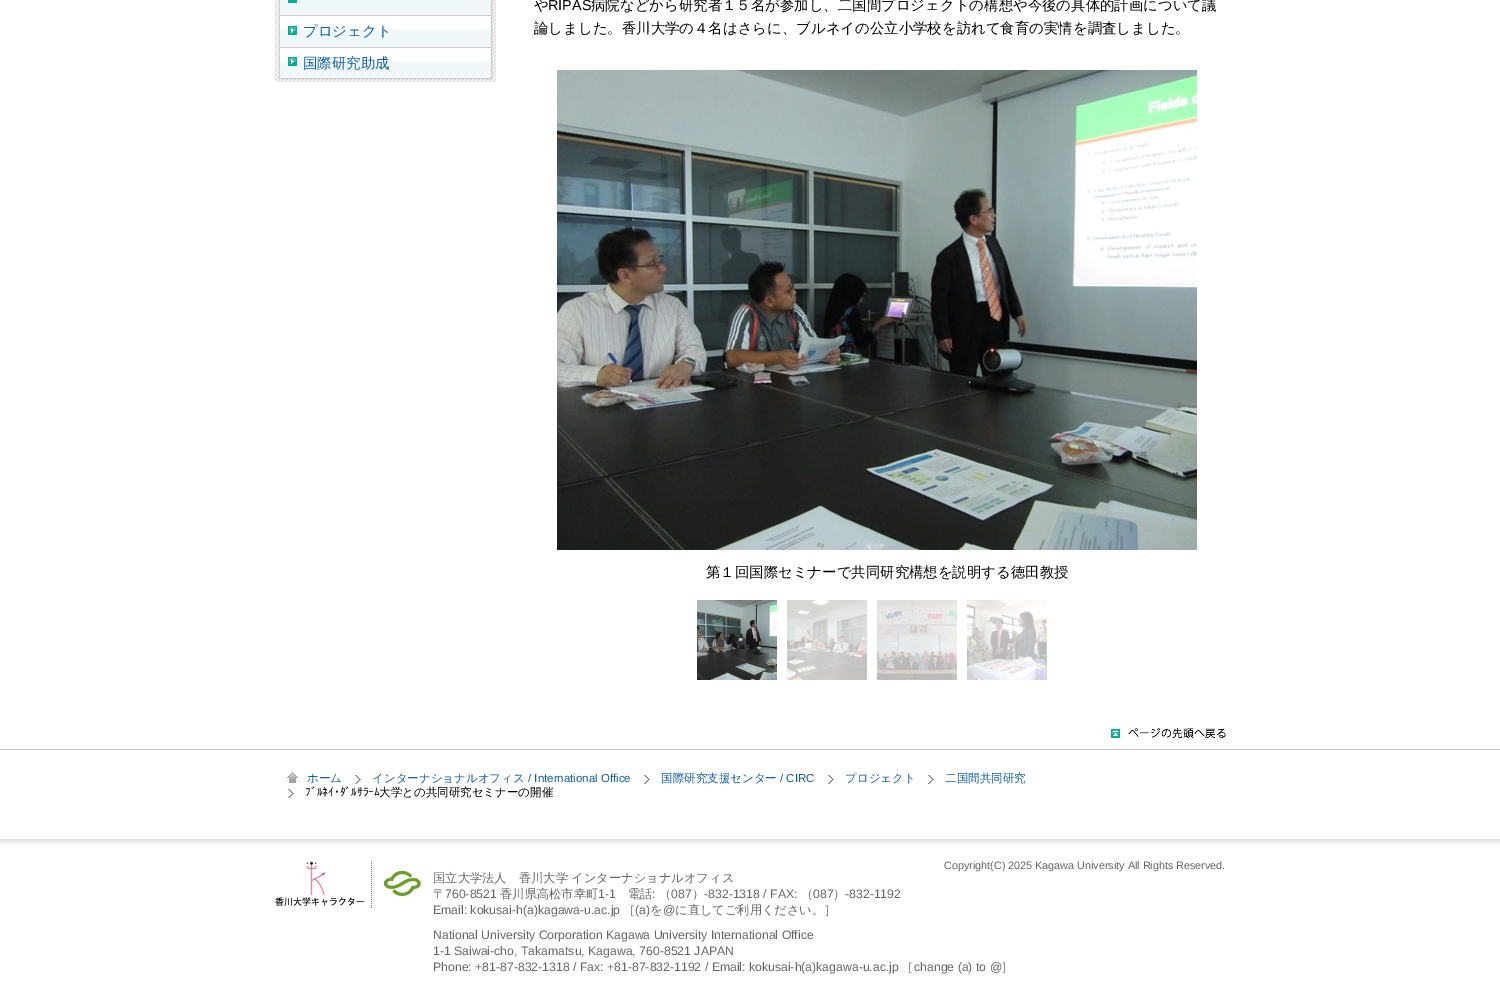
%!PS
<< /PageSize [1500 982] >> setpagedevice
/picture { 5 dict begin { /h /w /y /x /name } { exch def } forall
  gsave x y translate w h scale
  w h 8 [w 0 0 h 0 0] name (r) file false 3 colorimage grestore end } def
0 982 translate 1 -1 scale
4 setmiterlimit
1 setgray
0 0 1500 982 rectfill
(img1.rgb) 275 0 221 82 picture
0.8 setgray
279.5 -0.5 212 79 rectstroke
1 setgray
280 16 211 46 rectfill
0.937 0.969 0.973 setrgbcolor
280 0 211 15 rectfill
0 0.675 0.604 setrgbcolor
288 0 9 3 rectfill
0.937 0.969 0.973 setrgbcolor
280 30 211 17 rectfill
0.8 setgray
280 15 211 1 rectfill
(img2.rgb) 288 26 9 9 picture
/WenQuanYiZenHei-Medium [14.4 0 0 -14.4 0 0] selectfont
0.055 0.373 0.69 setrgbcolor
303 36 moveto (プロジェクト) show
0.937 0.969 0.973 setrgbcolor
280 62 211 16 rectfill
0.8 setgray
280 47 211 1 rectfill
(img2.rgb) 288 57 9 9 picture
0.055 0.373 0.69 setrgbcolor
303 68 moveto (国際研究助成) show
0 setgray
534 10 moveto (や) show
/LiberationSans-Regular [14.4 0 0 -14.4 0 0] selectfont
548 10 moveto (RIPAS) show
/WenQuanYiZenHei-Medium [14.4 0 0 -14.4 0 0] selectfont
591 10 moveto (病院などから研究者１５名が参加し、二国間プロジェクトの構想や今後の具体的計画について議) show
534 33 moveto (論しました。香川大学の４名はさらに、ブルネイの公立小学校を訪れて食育の実情を調査しました。) show
(img3.rgb) 557 70 640 480 picture
706 577 moveto (第１回国際セミナーで共同研究構想を説明する徳田教授) show
(img4.rgb) 697 600 80 80 picture
(img5.rgb) 787 600 80 80 picture
(img6.rgb) 877 600 80 80 picture
(img7.rgb) 967 600 80 80 picture
(img8.rgb) 1111 728 115 11 picture
0.8 setgray
0 749 1500 1 rectfill
(img9.rgb) 287 772 11 11 picture
/WenQuanYiZenHei-Medium [11.5 0 0 -11.5 0 0] selectfont
0.055 0.373 0.69 setrgbcolor
307 782 moveto (ホーム) show
(img10.rgb) 355 775 6 9 picture
372 782 moveto (インターナショナルオフィス) show
/LiberationSans-Regular [11.5 0 0 -11.5 0 0] selectfont
528 782 moveto (/ International Office) show
(img10.rgb) 644 775 6 9 picture
/WenQuanYiZenHei-Medium [11.5 0 0 -11.5 0 0] selectfont
661 782 moveto (国際研究支援センター) show
/LiberationSans-Regular [11.5 0 0 -11.5 0 0] selectfont
780 782 moveto (/ CIRC) show
(img10.rgb) 828 775 6 9 picture
/WenQuanYiZenHei-Medium [11.5 0 0 -11.5 0 0] selectfont
845 782 moveto (プロジェクト) show
(img10.rgb) 928 775 6 9 picture
945 782 moveto (二国間共同研究) show
(img10.rgb) 288 789 6 9 picture
/IPAPGothic-Regular [11.5 0 0 -11.5 0 0] selectfont
0 setgray
305 796 moveto (ﾌﾞﾙﾈｲ･ﾀﾞﾙｻﾗｰﾑ) show
/WenQuanYiZenHei-Medium [11.5 0 0 -11.5 0 0] selectfont
379 796 moveto (大学との共同研究セミナーの開催) show
(img11.rgb) 0 839 1500 7 picture
/LiberationSans-Regular [10.8 0 0 -10.8 0 0] selectfont
0.4 setgray
944 869 moveto (Copyright\(C\) 2025 Kagawa University All Rights Reserved.) show
(img12.rgb) 275 861 97 47 picture
(img13.rgb) 384 871 37 26 picture
/WenQuanYiZenHei-Medium [12.25 0 0 -12.25 0 0] selectfont
433 882 moveto (国立大学法人　香川大学 インターナショナルオフィス) show
433 898 moveto (〒) show
/LiberationSans-Regular [12.25 0 0 -12.25 0 0] selectfont
445 898 moveto (760-8521) show
/WenQuanYiZenHei-Medium [12.25 0 0 -12.25 0 0] selectfont
500 898 moveto (香川県高松市幸町) show
/LiberationSans-Regular [12.25 0 0 -12.25 0 0] selectfont
598 898 moveto (1-1) show
/WenQuanYiZenHei-Medium [12.25 0 0 -12.25 0 0] selectfont
628 898 moveto (電話) show
/LiberationSans-Regular [12.25 0 0 -12.25 0 0] selectfont
652 898 moveto (:) show
/WenQuanYiZenHei-Medium [12.25 0 0 -12.25 0 0] selectfont
659 898 moveto (（) show
/LiberationSans-Regular [12.25 0 0 -12.25 0 0] selectfont
671 898 moveto (087) show
/WenQuanYiZenHei-Medium [12.25 0 0 -12.25 0 0] selectfont
692 898 moveto (）) show
/LiberationSans-Regular [12.25 0 0 -12.25 0 0] selectfont
704 898 moveto (-832-1318 / FAX:) show
/WenQuanYiZenHei-Medium [12.25 0 0 -12.25 0 0] selectfont
801 898 moveto (（) show
/LiberationSans-Regular [12.25 0 0 -12.25 0 0] selectfont
813 898 moveto (087) show
/WenQuanYiZenHei-Medium [12.25 0 0 -12.25 0 0] selectfont
833 898 moveto (）) show
/LiberationSans-Regular [12.25 0 0 -12.25 0 0] selectfont
845 898 moveto (-832-1192) show
433 914 moveto (Email: kokusai-h\(a\)kagawa-u.ac.jp) show
/WenQuanYiZenHei-Medium [12.25 0 0 -12.25 0 0] selectfont
623 914 moveto (［) show
/LiberationSans-Regular [12.25 0 0 -12.25 0 0] selectfont
635 914 moveto (\(a\)) show
/WenQuanYiZenHei-Medium [12.25 0 0 -12.25 0 0] selectfont
650 914 moveto (を) show
/LiberationSans-Regular [12.25 0 0 -12.25 0 0] selectfont
663 914 moveto (@) show
/WenQuanYiZenHei-Medium [12.25 0 0 -12.25 0 0] selectfont
675 914 moveto (に直してご利用ください。］) show
/LiberationSans-Regular [12.25 0 0 -12.25 0 0] selectfont
433 939 moveto (National University Corporation Kagawa University International Office) show
433 955 moveto (1-1 Saiwai-cho, Takamatsu, Kagawa, 760-8521 JAPAN) show
433 971 moveto (Phone: +81-87-832-1318 / Fax: +81-87-832-1192 / Email: kokusai-h\(a\)kagawa-u.ac.jp) show
/WenQuanYiZenHei-Medium [12.25 0 0 -12.25 0 0] selectfont
901 971 moveto (［) show
/LiberationSans-Regular [12.25 0 0 -12.25 0 0] selectfont
914 971 moveto (change \(a\) to @) show
/WenQuanYiZenHei-Medium [12.25 0 0 -12.25 0 0] selectfont
1001 971 moveto (］) show
showpage
